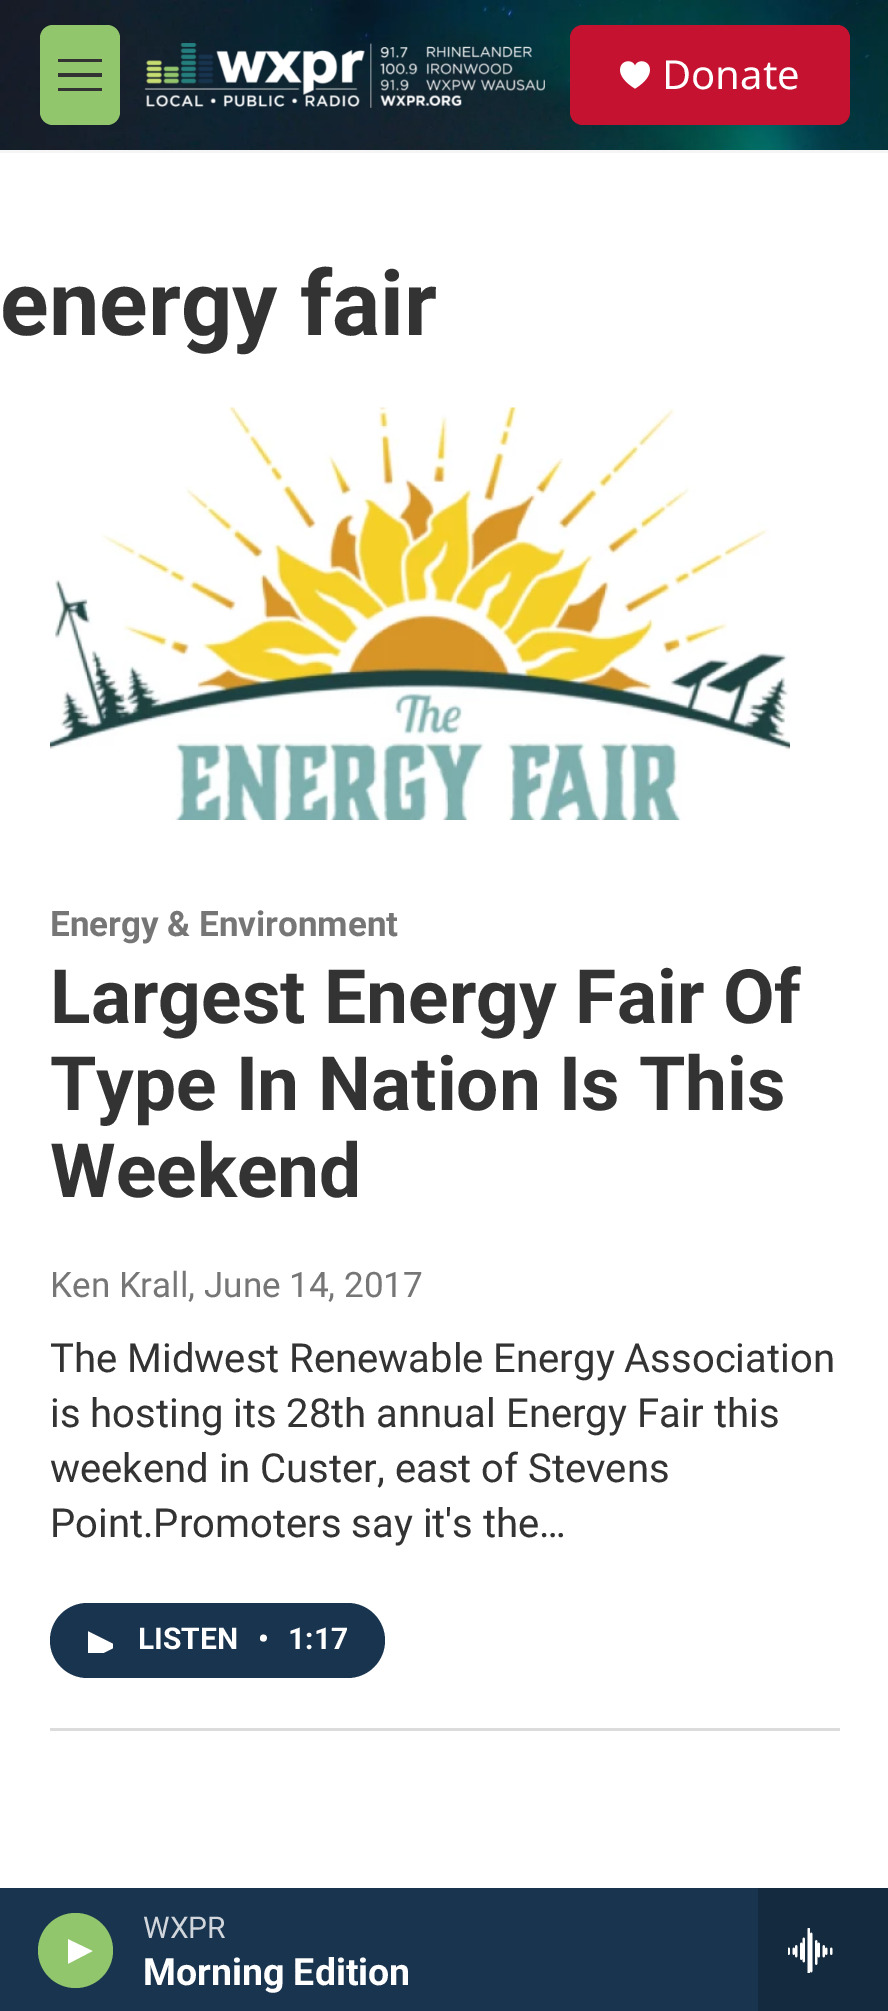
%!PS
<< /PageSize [888 2011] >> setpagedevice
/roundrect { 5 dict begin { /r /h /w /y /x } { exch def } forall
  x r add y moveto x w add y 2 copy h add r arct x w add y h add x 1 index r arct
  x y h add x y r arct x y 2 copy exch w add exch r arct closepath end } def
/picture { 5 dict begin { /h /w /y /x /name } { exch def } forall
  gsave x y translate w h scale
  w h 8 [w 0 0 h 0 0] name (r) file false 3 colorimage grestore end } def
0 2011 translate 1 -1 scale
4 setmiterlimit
1 setgray
0 0 888 2011 rectfill
0.961 setgray
0 150 888 3 rectfill
(img1.rgb) 0 0 888 150 picture
0.573 0.776 0.424 setrgbcolor
40 25 80 100 13 roundrect fill
0.2 setgray
newpath 58 77 moveto 58 73 lineto 102 73 lineto 102 77 lineto closepath 58 62 moveto 58 59 lineto 102 59 lineto 102 62 lineto closepath 58 91 moveto 58 88 lineto 102 88 lineto 102 91 lineto closepath eofill
(img2.rgb) 144 43 401 65 picture
0.769 0.071 0.188 setrgbcolor
570 25 280 100 13 roundrect fill
(img3.rgb) 620 61 30 28 picture
/NotoSans-Regular [40 0 0 -40 0 0] selectfont
1 setgray
662 89 moveto (Donate) show
0.098 0.204 0.306 setrgbcolor
0 1888 758 123 rectfill
0.573 0.776 0.424 setrgbcolor
newpath 75.5 1950.5 37.5 0 360 arc closepath fill
gsave
68 1938 25 27 rectclip
1 setgray
newpath 67.5 1939 moveto 92.5 1951 lineto 67.5 1964 lineto closepath fill
grestore
/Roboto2-Regular [30 0 0 -30 0 0] selectfont
0.82 0.839 0.863 setrgbcolor
143 1938 moveto (WXPR) show
/Roboto2-Bold [37.5 0 0 -37.5 0 0] selectfont
1 setgray
143 1985 moveto (Morning Edition) show
0.078 0.165 0.243 setrgbcolor
758 1888 130 123 rectfill
(img4.rgb) 788 1928 45 45 picture
/Roboto-Bold [90 0 0 -90 0 0] selectfont
0.2 setgray
0 335 moveto (energy fair) show
0.863 setgray
50 1728 790 3 rectfill
(img5.rgb) 50 407 740 413 picture
/Roboto2-Bold [35 0 0 -35 0 0] selectfont
0.463 setgray
50 936 moveto (Energy & Environment) show
/Roboto2-Bold [75 0 0 -75 0 0] selectfont
0.2 setgray
50 1023 moveto (Largest Energy Fair Of) show
50 1110 moveto (Type In Nation Is This) show
50 1197 moveto (Weekend) show
/Roboto-Regular [35 0 0 -35 0 0] selectfont
0.463 setgray
50 1297 moveto (Ken Krall, June 14, 2017) show
/Roboto2-Regular [40 0 0 -40 0 0] selectfont
0.2 setgray
50 1372 moveto (The Midwest Renewable Energy Association) show
50 1427 moveto (is hosting its 28th annual Energy Fair this) show
50 1482 moveto (weekend in Custer, east of Stevens) show
50 1537 moveto (Point.Promoters say it's the…) show
0.098 0.204 0.306 setrgbcolor
50 1603 335 75 37.5 roundrect fill
gsave
88 1628 25 25 rectclip
1 setgray
newpath 87.5 1631 moveto 117.5 1646 lineto 87.5 1661 lineto closepath fill
grestore
/Roboto2-Bold [30 0 0 -30 0 0] selectfont
1 setgray
138 1649 moveto (LISTEN) show
258 1649 moveto (•) show
288 1649 moveto (1:17) show
showpage
